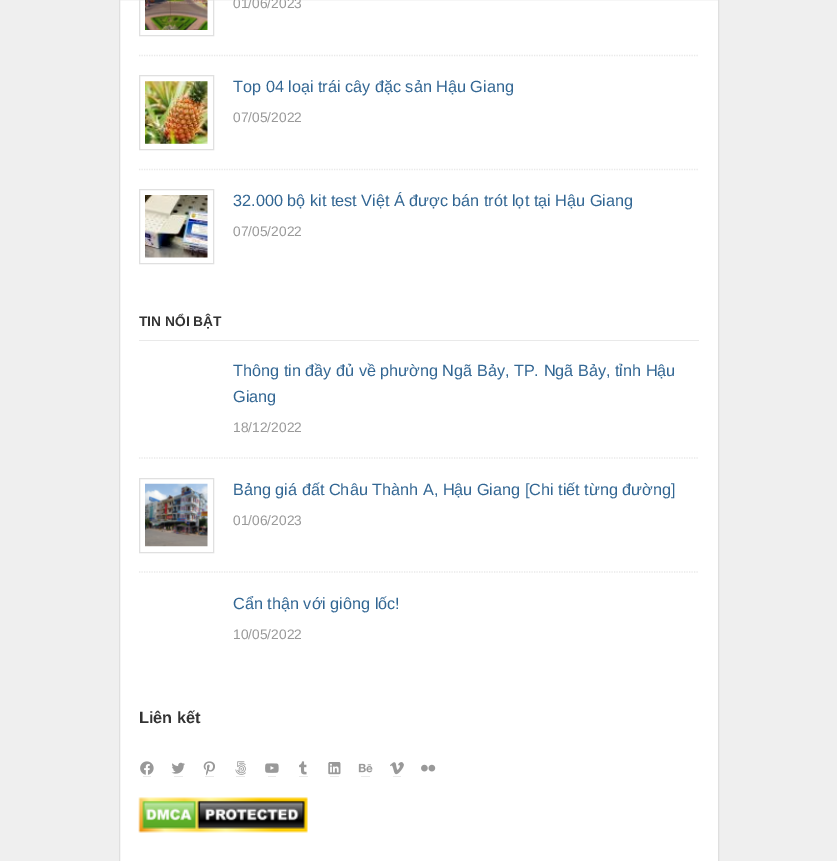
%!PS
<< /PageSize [837 861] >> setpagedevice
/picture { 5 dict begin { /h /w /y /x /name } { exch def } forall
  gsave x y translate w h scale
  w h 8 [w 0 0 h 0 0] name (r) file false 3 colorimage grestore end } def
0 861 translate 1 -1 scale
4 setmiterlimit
0.937 setgray
0 0 837 861 rectfill
1 setgray
newpath 119.5 -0.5 moveto 718.5 -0.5 lineto 718.5 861.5 lineto 119.5 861.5 lineto closepath gsave fill grestore
0.875 setgray
stroke
0.914 setgray
1.2 setlinewidth
[1.25 1.25] 0 setdash
newpath 139 55.5 moveto 699 55.5 lineto stroke
0.878 setgray
1 setlinewidth
[] 0 setdash
139.5 -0.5 74 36 rectstroke
(img1.rgb) 145 0 63 30 picture
/LiberationSans-Regular [13.75 0 0 -13.75 0 0] selectfont
0.6 setgray
233 8 moveto (01/06/2023) show
0.914 setgray
1.2 setlinewidth
[1.25 1.25] 0 setdash
newpath 139 169.5 moveto 699 169.5 lineto stroke
0.878 setgray
1 setlinewidth
[] 0 setdash
139.5 75.5 74 74 rectstroke
(img2.rgb) 145 81 63 63 picture
/LiberationSans-Regular [16.25 0 0 -16.25 0 0] selectfont
0.196 0.4 0.576 setrgbcolor
233 92 moveto (Top 04 loại trái cây đặc sản Hậu Giang) show
/LiberationSans-Regular [13.75 0 0 -13.75 0 0] selectfont
0.6 setgray
233 122 moveto (07/05/2022) show
0.878 setgray
139.5 189.5 74 74 rectstroke
(img3.rgb) 145 195 63 63 picture
/LiberationSans-Regular [16.25 0 0 -16.25 0 0] selectfont
0.196 0.4 0.576 setrgbcolor
233 206 moveto (32.000 bộ kit test Việt Á được bán trót lọt tại Hậu Giang) show
/LiberationSans-Regular [13.75 0 0 -13.75 0 0] selectfont
0.6 setgray
233 236 moveto (07/05/2022) show
0.914 setgray
139 340 560 1 rectfill
/LiberationSans-Bold [13.75 0 0 -13.75 0 0] selectfont
0.2 setgray
139 326 moveto (TIN NỔI BẬT) show
0.914 setgray
1.2 setlinewidth
[1.25 1.25] 0 setdash
newpath 139 458 moveto 699 458 lineto stroke
/LiberationSans-Regular [16.25 0 0 -16.25 0 0] selectfont
0.196 0.4 0.576 setrgbcolor
233 376 moveto (Thông tin đầy đủ về phường Ngã Bảy, TP. Ngã Bảy, tỉnh Hậu) show
233 402 moveto (Giang) show
/LiberationSans-Regular [13.75 0 0 -13.75 0 0] selectfont
0.6 setgray
233 432 moveto (18/12/2022) show
0.914 setgray
newpath 139 572 moveto 699 572 lineto stroke
0.878 setgray
1 setlinewidth
[] 0 setdash
139.5 478.5 74 74 rectstroke
(img4.rgb) 145 483 63 64 picture
/LiberationSans-Regular [16.25 0 0 -16.25 0 0] selectfont
0.196 0.4 0.576 setrgbcolor
233 495 moveto (Bảng giá đất Châu Thành A, Hậu Giang [Chi tiết từng đường]) show
/LiberationSans-Regular [13.75 0 0 -13.75 0 0] selectfont
0.6 setgray
233 525 moveto (01/06/2023) show
/LiberationSans-Regular [16.25 0 0 -16.25 0 0] selectfont
0.196 0.4 0.576 setrgbcolor
233 609 moveto (Cẩn thận với giông lốc!) show
/LiberationSans-Regular [13.75 0 0 -13.75 0 0] selectfont
0.6 setgray
233 639 moveto (10/05/2022) show
/LiberationSans-Bold [16.25 0 0 -16.25 0 0] selectfont
0.2 setgray
139 723 moveto (Liên kết) show
0.914 setgray
143 776 8 1 rectfill
(img5.rgb) 140 761 14 14 picture
174 776 9 1 rectfill
(img6.rgb) 171 762 14 12 picture
205 776 9 1 rectfill
(img7.rgb) 203 761 12 15 picture
236 776 9 1 rectfill
(img8.rgb) 235 761 11 14 picture
268 776 8 1 rectfill
(img9.rgb) 265 763 14 10 picture
299 776 9 1 rectfill
(img10.rgb) 299 761 8 14 picture
330 776 9 1 rectfill
(img11.rgb) 328 762 13 13 picture
361 776 9 1 rectfill
(img12.rgb) 358 763 15 10 picture
393 776 8 1 rectfill
(img13.rgb) 390 762 14 13 picture
(img14.rgb) 421 764 15 8 picture
(img15.rgb) 138 797 170 36 picture
showpage
